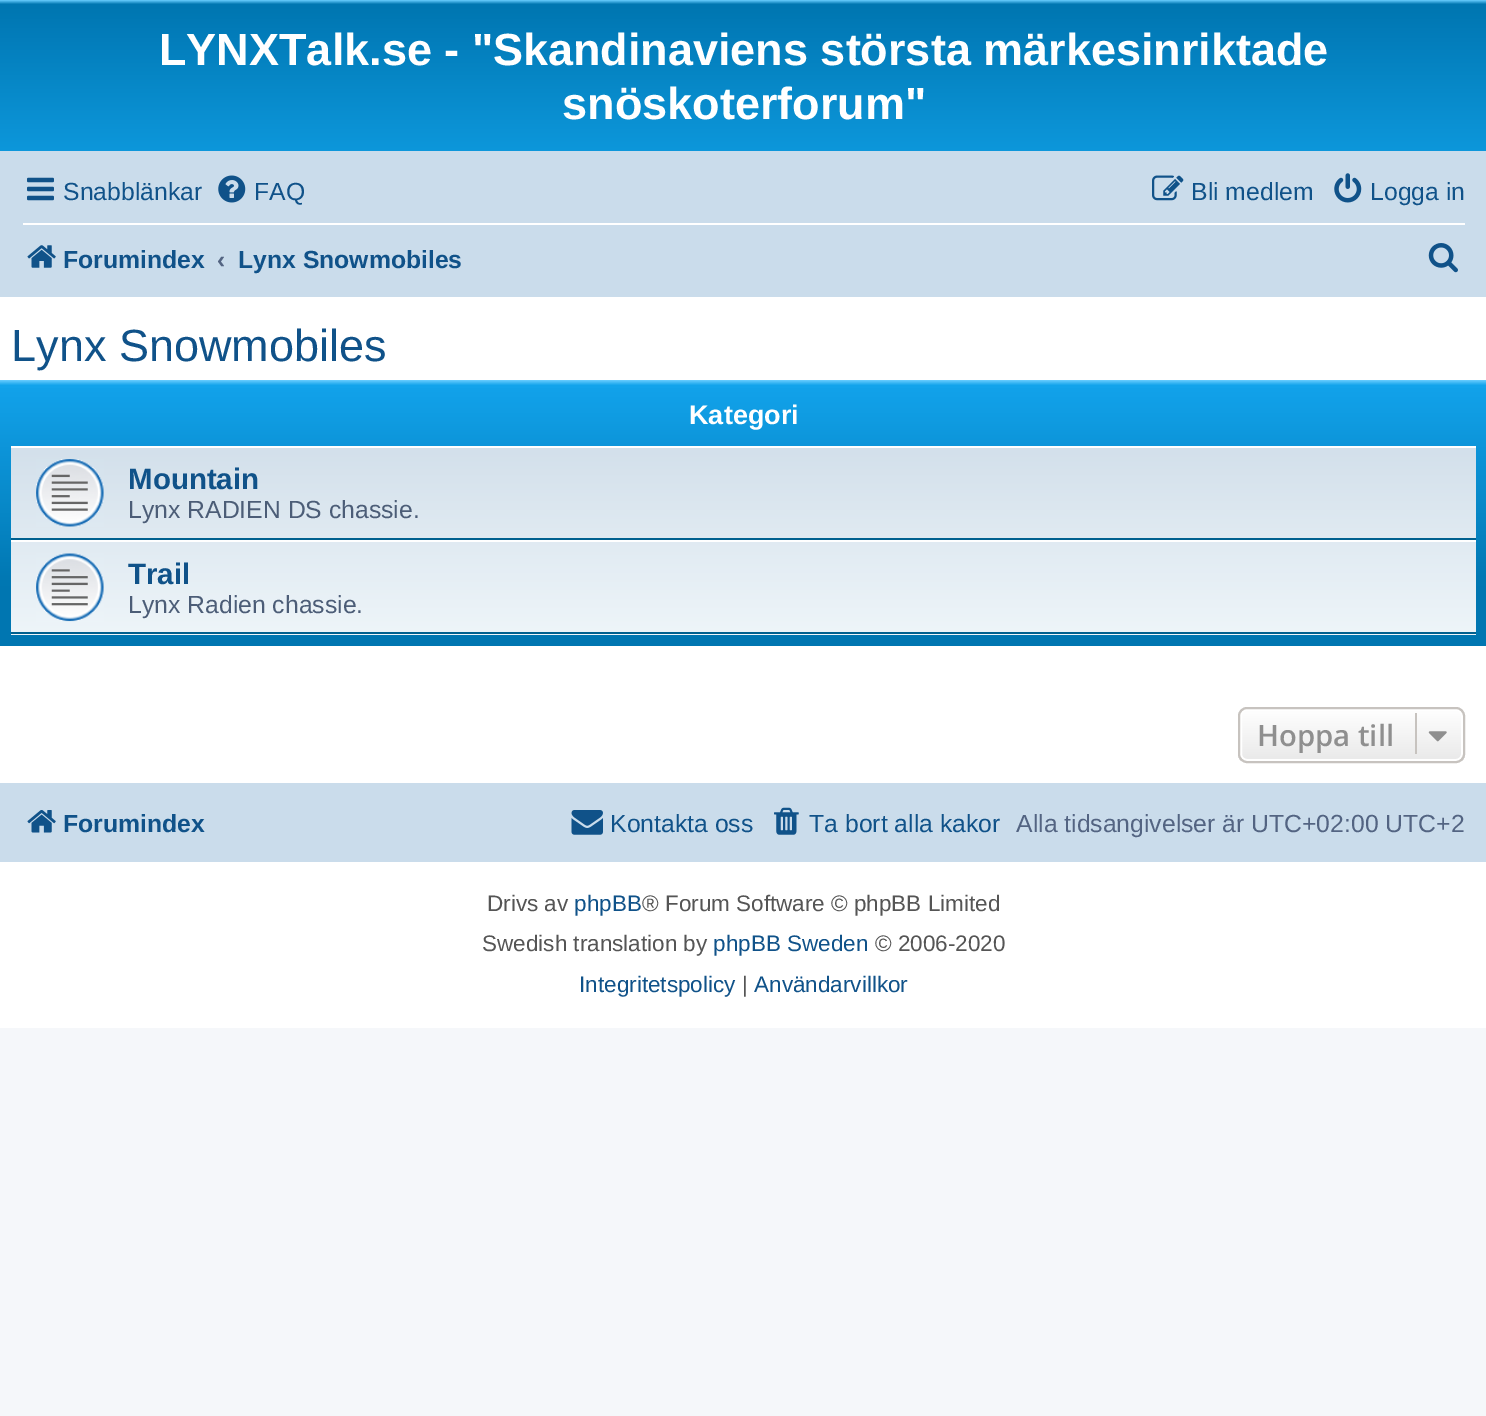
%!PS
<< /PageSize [1486 1416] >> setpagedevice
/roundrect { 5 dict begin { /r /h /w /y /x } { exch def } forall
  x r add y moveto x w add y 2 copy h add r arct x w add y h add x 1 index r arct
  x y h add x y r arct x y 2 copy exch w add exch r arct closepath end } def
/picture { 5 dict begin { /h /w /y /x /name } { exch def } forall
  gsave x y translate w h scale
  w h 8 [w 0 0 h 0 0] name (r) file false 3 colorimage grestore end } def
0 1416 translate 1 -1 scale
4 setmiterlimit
0.961 0.969 0.98 setrgbcolor
0 0 1486 1416 rectfill
1 setgray
0 297 1486 731 rectfill
gsave newpath 0 0 moveto 1486 0 lineto 1486 151 lineto 0 151 lineto closepath clip newpath
<< /ShadingType 2 /ColorSpace /DeviceRGB /Coords [744 0 744 207] /Extend [true true] /Function << /FunctionType 3 /Domain [0 1] /Functions [<< /FunctionType 2 /Domain [0 1] /C0 [0.416 0.808 1] /C1 [0 0.463 0.694] /N 1 >> << /FunctionType 2 /Domain [0 1] /C0 [0 0.463 0.694] /C1 [0.071 0.639 0.922] /N 1 >>] /Bounds [0.02] /Encode [0 1 0 1] >> >> shfill grestore
/LiberationSans-Bold [45 0 0 -45 0 0] selectfont
159 65 moveto (LYNXTalk.se - "Skandinaviens största märkesinriktade) show
562 119 moveto (snöskoterforum") show
0.792 0.863 0.922 setrgbcolor
0 151 1486 146 rectfill
(img1.rgb) 27 177 27 24 picture
/LiberationSans-Regular [24.75 0 0 -24.75 0 0] selectfont
0.063 0.322 0.537 setrgbcolor
63 200 moveto (Snabblänkar) show
(img2.rgb) 218 175 28 28 picture
254 200 moveto (FAQ) show
(img3.rgb) 1152 175 32 26 picture
1191 200 moveto (Bli medlem) show
(img4.rgb) 1334 173 28 30 picture
1370 200 moveto (Logga in) show
1 setgray
23 223 1442 2 rectfill
(img5.rgb) 27 245 29 23 picture
/LiberationSans-Bold [24.75 0 0 -24.75 0 0] selectfont
0.063 0.322 0.537 setrgbcolor
63 268 moveto (Forumindex) show
0.325 0.392 0.51 setrgbcolor
217 268 moveto (‹) show
0.063 0.322 0.537 setrgbcolor
238 268 moveto (Lynx Snowmobiles) show
(img6.rgb) 1428 243 30 30 picture
/LiberationSans-Regular [45 0 0 -45 0 0] selectfont
11 361 moveto (Lynx Snowmobiles) show
gsave newpath 0 380 moveto 1486 380 lineto 1486 646 lineto 0 646 lineto closepath clip newpath
<< /ShadingType 2 /ColorSpace /DeviceRGB /Coords [744 380 744 646] /Extend [true true] /Function << /FunctionType 3 /Domain [0 1] /Functions [<< /FunctionType 2 /Domain [0 1] /C0 [0.416 0.808 1] /C1 [0.071 0.639 0.922] /N 1 >> << /FunctionType 2 /Domain [0 1] /C0 [0.071 0.639 0.922] /C1 [0 0.463 0.694] /N 1 >> << /FunctionType 2 /Domain [0 1] /C0 [0 0.463 0.694] /C1 [0 0.463 0.694] /N 1 >>] /Bounds [0.02 0.78] /Encode [0 1 0 1 0 1] >> >> shfill grestore
/LiberationSans-Bold [27 0 0 -27 0 0] selectfont
1 setgray
689 424 moveto (Kategori) show
gsave newpath 11 448 moveto 1476 448 lineto 1476 635 lineto 11 635 lineto closepath clip newpath
<< /ShadingType 2 /ColorSpace /DeviceRGB /Coords [744 445 744 635] /Extend [true true] /Function << /FunctionType 2 /Domain [0 1] /C0 [0.824 0.878 0.922] /C1 [0.933 0.961 0.976] /N 1 >> >> shfill grestore
11 446 1465 2 rectfill
0 0.376 0.561 setrgbcolor
11 538 1465 2 rectfill
(img7.rgb) 36 459 68 68 picture
/LiberationSans-Bold [29.5 0 0 -29.5 0 0] selectfont
0.063 0.322 0.537 setrgbcolor
128 489 moveto (Mountain) show
/LiberationSans-Regular [24.75 0 0 -24.75 0 0] selectfont
0.298 0.365 0.467 setrgbcolor
128 518 moveto (Lynx RADIEN DS chassie.) show
1 setgray
11 540 1465 2 rectfill
0 0.376 0.561 setrgbcolor
11 632 1465 2 rectfill
(img8.rgb) 36 553 68 69 picture
/LiberationSans-Bold [29.5 0 0 -29.5 0 0] selectfont
0.063 0.322 0.537 setrgbcolor
128 584 moveto (Trail) show
/LiberationSans-Regular [24.75 0 0 -24.75 0 0] selectfont
0.298 0.365 0.467 setrgbcolor
128 613 moveto (Lynx Radien chassie.) show
gsave
1238 707 227 56 9 roundrect clip newpath
gsave newpath 1238 709 moveto 1465 709 lineto 1465 761 lineto 1238 761 lineto closepath clip newpath
<< /ShadingType 2 /ColorSpace /DeviceRGB /Coords [1351 709 1351 761] /Extend [true true] /Function << /FunctionType 2 /Domain [0 1] /C0 [1 1 1] /C1 [0.914 0.914 0.914] /N 1 >> >> shfill grestore
grestore
1 setgray
2 setlinewidth
1241 710 221 50 6 roundrect stroke
0.78 0.765 0.749 setrgbcolor
1239 708 225 54 8 roundrect stroke
/OpenSans-SemiBold [29.25 0 0 -29.25 0 0] selectfont
0.561 setgray
1257 746 moveto (Hoppa till) show
0.78 0.765 0.749 setrgbcolor
1415 713 2 41 rectfill
(img9.rgb) 1428 731 19 11 picture
0.792 0.863 0.922 setrgbcolor
0 783 1486 79 rectfill
(img10.rgb) 27 810 29 23 picture
/LiberationSans-Bold [24.75 0 0 -24.75 0 0] selectfont
0.063 0.322 0.537 setrgbcolor
63 832 moveto (Forumindex) show
(img11.rgb) 571 810 32 25 picture
/LiberationSans-Regular [24.75 0 0 -24.75 0 0] selectfont
610 832 moveto (Kontakta oss) show
(img12.rgb) 774 807 25 28 picture
809 832 moveto (Ta bort alla kakor) show
0.325 0.392 0.51 setrgbcolor
1016 832 moveto (Alla tidsangivelser är UTC+02:00 UTC+2) show
/LiberationSans-Regular [22.5 0 0 -22.5 0 0] selectfont
0.333 setgray
487 911 moveto (Drivs av) show
0.063 0.322 0.537 setrgbcolor
574 911 moveto (phpBB) show
0.333 setgray
642 911 moveto (® Forum Software © phpBB Limited) show
482 951 moveto (Swedish translation by) show
0.063 0.322 0.537 setrgbcolor
713 951 moveto (phpBB Sweden) show
0.333 setgray
875 951 moveto (© 2006-2020) show
0.063 0.322 0.537 setrgbcolor
579 992 moveto (Integritetspolicy) show
0.333 setgray
742 992 moveto (|) show
0.063 0.322 0.537 setrgbcolor
754 992 moveto (Användarvillkor) show
showpage
